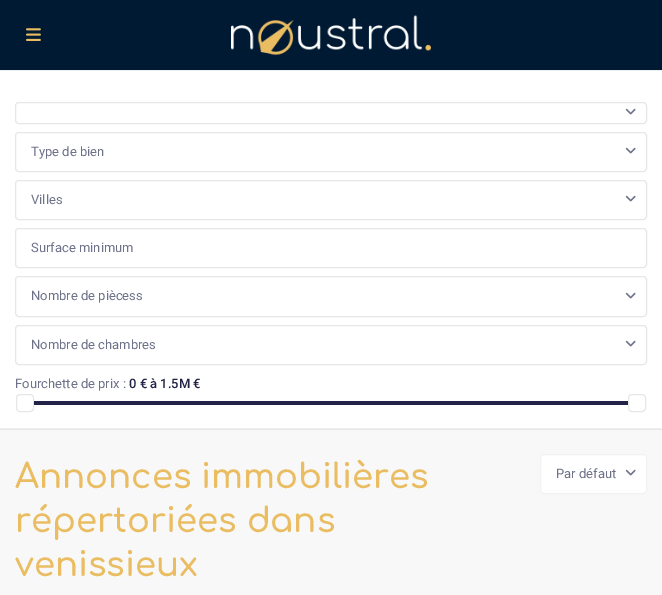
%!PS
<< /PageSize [662 595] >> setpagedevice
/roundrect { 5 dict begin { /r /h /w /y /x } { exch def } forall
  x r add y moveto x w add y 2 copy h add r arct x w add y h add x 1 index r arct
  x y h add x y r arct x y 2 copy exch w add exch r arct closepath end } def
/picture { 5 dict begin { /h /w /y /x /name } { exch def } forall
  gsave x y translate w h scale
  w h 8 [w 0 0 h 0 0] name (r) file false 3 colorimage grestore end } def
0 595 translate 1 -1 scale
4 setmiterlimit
0.973 setgray
0 0 662 595 rectfill
0 0.102 0.2 setrgbcolor
0 0 662 70 rectfill
(img1.rgb) 26 28 15 13 picture
(img2.rgb) 231 15 200 40 picture
0.906 setgray
0 429 662 1 rectfill
1 setgray
0 71 662 357 rectfill
0.937 setgray
0 70 662 1 rectfill
0 428 662 1 rectfill
0.906 setgray
15.5 102.5 631 21 3.5 roundrect stroke
(img3.rgb) 625 108 11 7 picture
15.5 132.5 631 39 3.5 roundrect stroke
/Roboto-Regular [13 0 0 -13 0 0] selectfont
0.431 0.443 0.541 setrgbcolor
31 156 moveto (Type de bien) show
(img3.rgb) 625 147 11 7 picture
0.906 setgray
15.5 180.5 631 39 3.5 roundrect stroke
0.431 0.443 0.541 setrgbcolor
31 204 moveto (Villes) show
(img3.rgb) 625 195 11 7 picture
0.906 setgray
15.5 228.5 631 39 3.5 roundrect stroke
0.431 0.443 0.541 setrgbcolor
31 252 moveto (Surface minimum) show
0.906 setgray
15.5 276.5 631 40 3.5 roundrect stroke
0.431 0.443 0.541 setrgbcolor
31 300 moveto (Nombre de piècess) show
(img3.rgb) 625 292 11 7 picture
0.906 setgray
15.5 325.5 631 39 3.5 roundrect stroke
0.431 0.443 0.541 setrgbcolor
31 349 moveto (Nombre de chambres) show
(img3.rgb) 625 340 11 7 picture
15 388 moveto (Fourchette de prix :) show
/Roboto-Medium [13 0 0 -13 0 0] selectfont
0.129 0.133 0.275 setrgbcolor
129 388 moveto (0 € à 1.5M €) show
0.906 setgray
16.5 394.5 17 17 3.5 roundrect stroke
0.129 0.133 0.275 setrgbcolor
34 401 594 4 rectfill
0.906 setgray
628.5 394.5 17 17 3.5 roundrect stroke
1 setgray
540.5 454.5 106 39 3.5 roundrect gsave fill grestore
0.949 setgray
stroke
/Roboto-Regular [13 0 0 -13 0 0] selectfont
0.431 0.443 0.541 setrgbcolor
556 478 moveto (Par défaut) show
(img3.rgb) 625 469 11 7 picture
/Comfortaa-SemiBold [34 0 0 -34 0 0] selectfont
0.918 0.741 0.384 setrgbcolor
15 488 moveto (Annonces immobilières) show
15 532 moveto (répertoriées dans) show
15 576 moveto (venissieux) show
showpage
